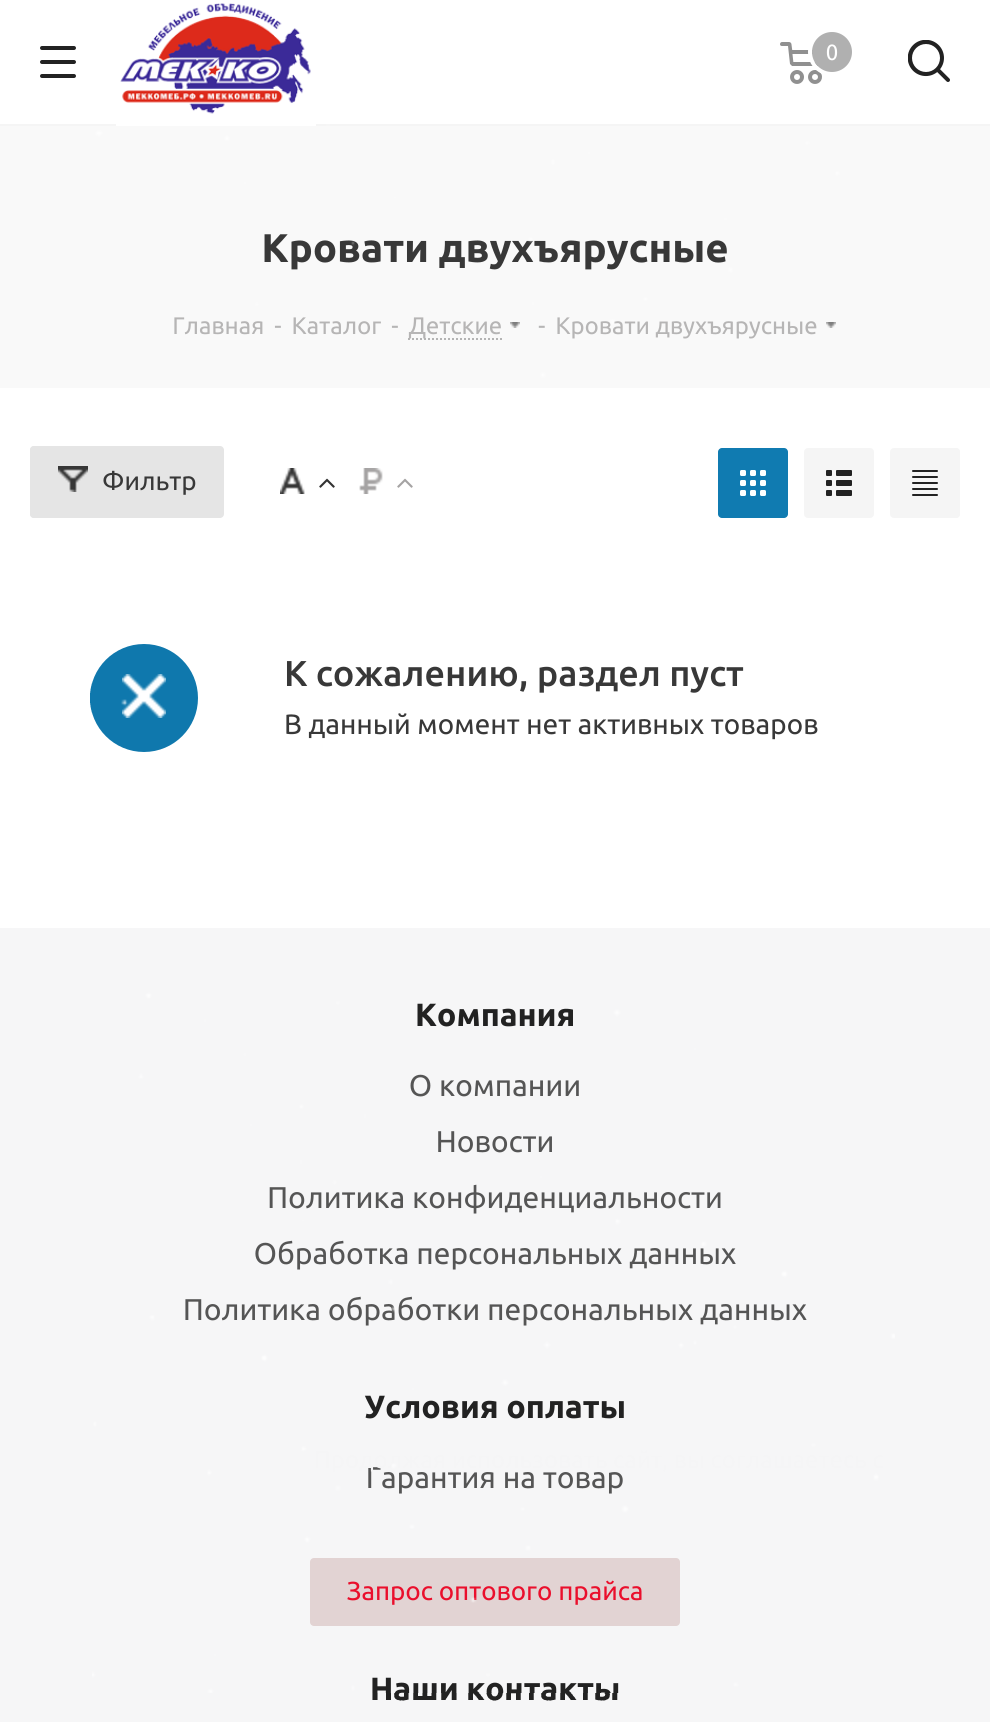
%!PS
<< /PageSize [990 1722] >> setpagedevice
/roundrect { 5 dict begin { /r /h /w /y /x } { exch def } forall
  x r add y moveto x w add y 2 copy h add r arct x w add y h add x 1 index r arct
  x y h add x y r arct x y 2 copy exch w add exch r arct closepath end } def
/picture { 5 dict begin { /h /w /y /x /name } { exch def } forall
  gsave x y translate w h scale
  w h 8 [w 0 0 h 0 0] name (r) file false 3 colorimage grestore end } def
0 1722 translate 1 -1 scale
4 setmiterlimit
1 setgray
0 0 990 1722 rectfill
0.961 setgray
0 124 990 2 rectfill
(img3.rgb) 120 3 191 111 picture
1 setgray
116 124 200 2 rectfill
(img4.rgb) 780 42 42 42 picture
4 setlinewidth
newpath 832 52 22 0 360 arc closepath stroke
0.69 setgray
newpath 832 52 20 0 360 arc closepath fill
/Ubuntu-Regular [22 0 0 -22 0 0] selectfont
1 setgray
826 60 moveto (0) show
0.976 setgray
0 126 990 262 rectfill
/Ubuntu-Bold [40 0 0 -40 0 0] selectfont
0.22 setgray
261 262 moveto (Кровати двухъярусные) show
/Ubuntu-Regular [24 0 0 -24 0 0] selectfont
0.714 0.71 0.71 setrgbcolor
172 334 moveto (Главная) show
274 334 moveto (-) show
292 334 moveto (Каталог) show
391 334 moveto (-) show
0.706 setgray
2 setlinewidth
[2 2] 0 setdash
newpath 408 339 moveto 502 339 lineto stroke
0.714 0.71 0.71 setrgbcolor
409 334 moveto (Детские) show
(img6.rgb) 510 322 10 6 picture
538 334 moveto (-) show
555 334 moveto (Кровати двухъярусные) show
(img6.rgb) 826 322 10 6 picture
0.898 setgray
30 446 194 72 4 roundrect fill
/Ubuntu-Regular [26 0 0 -26 0 0] selectfont
0.22 setgray
102 490 moveto (Фильтр) show
(img8.rgb) 280 468 25 26 picture
(img9.rgb) 319 478 16 10 picture
(img10.rgb) 359 468 24 26 picture
(img11.rgb) 397 478 16 10 picture
0.063 0.482 0.694 setrgbcolor
718 448 70 70 4 roundrect fill
(img12.rgb) 740 470 26 26 picture
0.961 setgray
804 448 70 70 4 roundrect fill
(img13.rgb) 826 470 26 26 picture
890 448 70 70 4 roundrect fill
0.059 0.471 0.678 setrgbcolor
newpath 144 698 54 0 360 arc closepath fill
/Ubuntu-Medium [36 0 0 -36 0 0] selectfont
0.22 setgray
284 686 moveto (К сожалению, раздел пуст) show
/Ubuntu-Regular [28 0 0 -28 0 0] selectfont
284 734 moveto (В данный момент нет активных товаров) show
(img15.rgb) 122 674 44 44 picture
0.965 0.965 0.969 setrgbcolor
0 928 990 794 rectfill
/Ubuntu-Bold [32 0 0 -32 0 0] selectfont
0.133 setgray
415 1026 moveto (Компания) show
/Ubuntu-Regular [30 0 0 -30 0 0] selectfont
0.333 setgray
409 1096 moveto (О компании) show
436 1152 moveto (Новости) show
267 1208 moveto (Политика конфиденциальности) show
254 1264 moveto (Обработка персональных данных) show
183 1320 moveto (Политика обработки персональных данных) show
/Ubuntu-Bold [32 0 0 -32 0 0] selectfont
0.133 setgray
364 1418 moveto (Условия оплаты) show
/Ubuntu-Regular [30 0 0 -30 0 0] selectfont
0.333 setgray
366 1488 moveto (Гарантия на товар) show
0.886 0.827 0.827 setrgbcolor
310 1558 370 68 4 roundrect fill
/Ubuntu-Regular [26 0 0 -26 0 0] selectfont
0.918 0.059 0.173 setrgbcolor
347 1600 moveto (Запрос оптового прайса) show
/Ubuntu-Bold [32 0 0 -32 0 0] selectfont
0.133 setgray
370 1700 moveto (Наши контакты) show
(img1.rgb) 92 12 803 1681 picture
(img2.rgb) 40 46 36 32 picture
(img5.rgb) 908 40 42 42 picture
(img7.rgb) 58 466 30 26 picture
(img14.rgb) 912 470 26 26 picture
showpage
